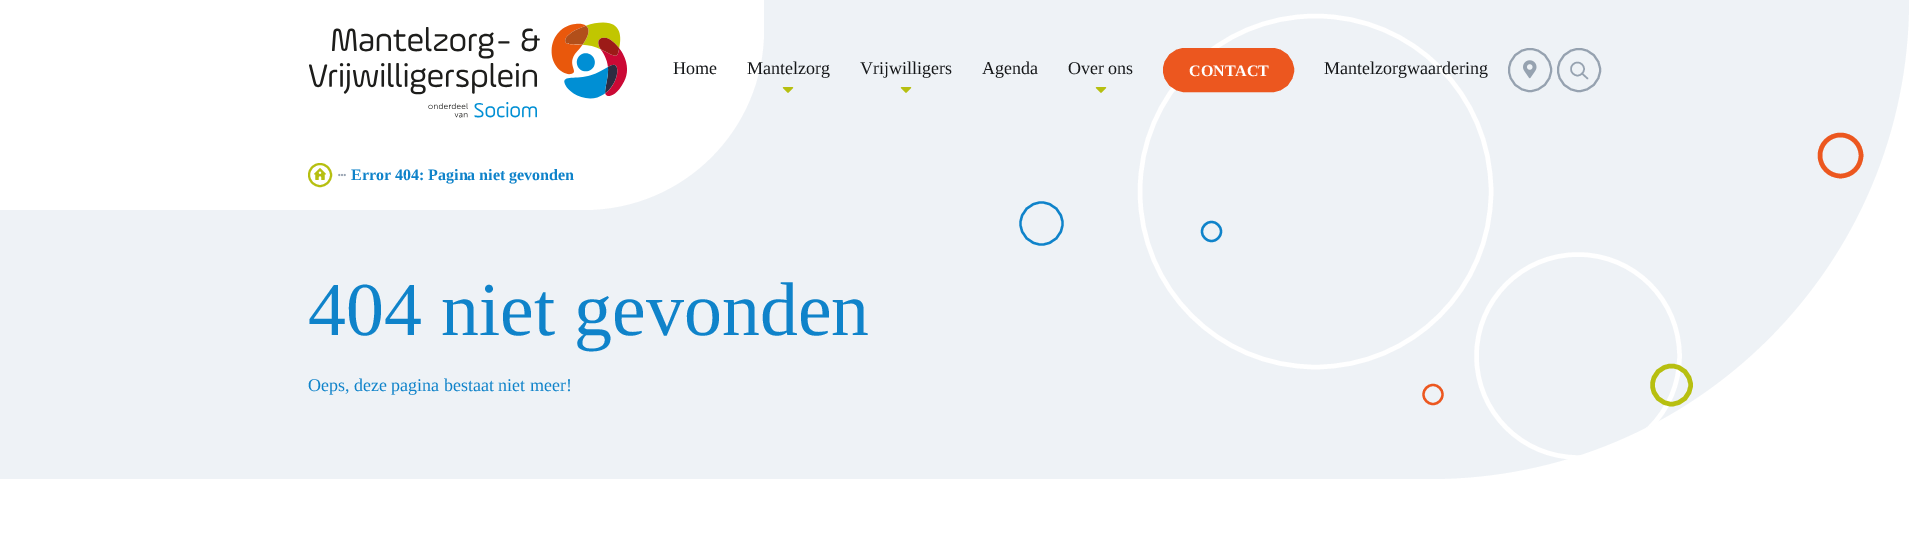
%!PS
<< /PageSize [1909 549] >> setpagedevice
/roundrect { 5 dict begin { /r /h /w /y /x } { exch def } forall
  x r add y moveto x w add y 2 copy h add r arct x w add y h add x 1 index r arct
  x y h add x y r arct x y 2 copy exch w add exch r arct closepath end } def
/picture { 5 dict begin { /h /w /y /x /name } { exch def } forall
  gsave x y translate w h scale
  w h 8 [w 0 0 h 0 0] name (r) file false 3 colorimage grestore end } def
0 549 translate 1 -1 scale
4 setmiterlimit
1 setgray
0 0 1909 549 rectfill
0.933 0.949 0.965 setrgbcolor
newpath 0 0 moveto 1909 0 lineto 1909 264.5 1694.5 479 1430 479 curveto 0 479 lineto closepath fill
1 setgray
newpath 0 0 moveto 764 0 lineto 764 30 lineto 764 129.5 683.5 210 584 210 curveto 0 210 lineto closepath fill
(img1.rgb) 309 22 318 96 picture
/LiberationSerif-Regular [18 0 0 -18 0 0] selectfont
0.086 0.094 0.102 setrgbcolor
673 74 moveto (Home) show
747 74 moveto (Mantelzorg) show
(img2.rgb) 782 87 12 6 picture
860 74 moveto (Vrijwilligers) show
(img2.rgb) 900 87 12 6 picture
982 74 moveto (Agenda) show
1068 74 moveto (Over ons) show
(img2.rgb) 1095 87 12 6 picture
0.059 0.514 0.792 setrgbcolor
2.3 setlinewidth
newpath 1211.5 231.5 9.5 0 360 arc closepath stroke
gsave
newpath 0 0 moveto 1909 0 lineto 1909 264.5 1694.5 479 1430 479 curveto 0 479 lineto closepath clip newpath
1 setgray
4.5 setlinewidth
newpath 1578 356 101.5 0 360 arc closepath stroke
grestore
1 setgray
4.5 setlinewidth
newpath 1315.5 191.5 175.5 0 360 arc closepath stroke
0.925 0.341 0.122 setrgbcolor
1164 49 129 42 21 roundrect gsave fill grestore
2 setlinewidth
stroke
/LiberationSerif-Bold [16 0 0 -16 0 0] selectfont
1 setgray
1189 76 moveto (CONTACT) show
/LiberationSerif-Regular [18 0 0 -18 0 0] selectfont
0.086 0.094 0.102 setrgbcolor
1324 74 moveto (Mantelzorgwaardering) show
0.588 0.635 0.69 setrgbcolor
newpath 1530 70 21 0 360 arc closepath stroke
(img3.rgb) 1523 60 14 19 picture
newpath 1579 70 21 0 360 arc closepath stroke
1.5 setlinewidth
newpath 1577.5 69 6.5 0 360 arc closepath stroke
1 setlinecap
1 setlinejoin
newpath 1582 73.5 moveto 1587.5 78.5 lineto stroke
0.059 0.514 0.792 setrgbcolor
2.3 setlinewidth
0 setlinecap
0 setlinejoin
newpath 1041.5 223.5 21 0 360 arc closepath stroke
0.925 0.341 0.122 setrgbcolor
newpath 1433 394.5 9.5 0 360 arc closepath stroke
0.718 0.749 0.063 setrgbcolor
4.5 setlinewidth
newpath 1671.5 385 19 0 360 arc closepath stroke
0.925 0.341 0.122 setrgbcolor
newpath 1840.5 155.5 20.5 0 360 arc closepath stroke
0.714 0.749 0.063 setrgbcolor
2 setlinewidth
newpath 320 175 11 0 360 arc closepath stroke
(img4.rgb) 314 168 12 12 picture
(img5.rgb) 338 173 8 4 picture
/LiberationSerif-Bold [16 0 0 -16 0 0] selectfont
0.059 0.514 0.792 setrgbcolor
351 180 moveto (Error 404: Pagina niet gevonden) show
/LiberationSerif-Regular [76 0 0 -76 0 0] selectfont
308 335 moveto (404 niet gevonden) show
/LiberationSerif-Regular [18 0 0 -18 0 0] selectfont
308 391 moveto (Oeps, deze pagina bestaat niet meer!) show
showpage
